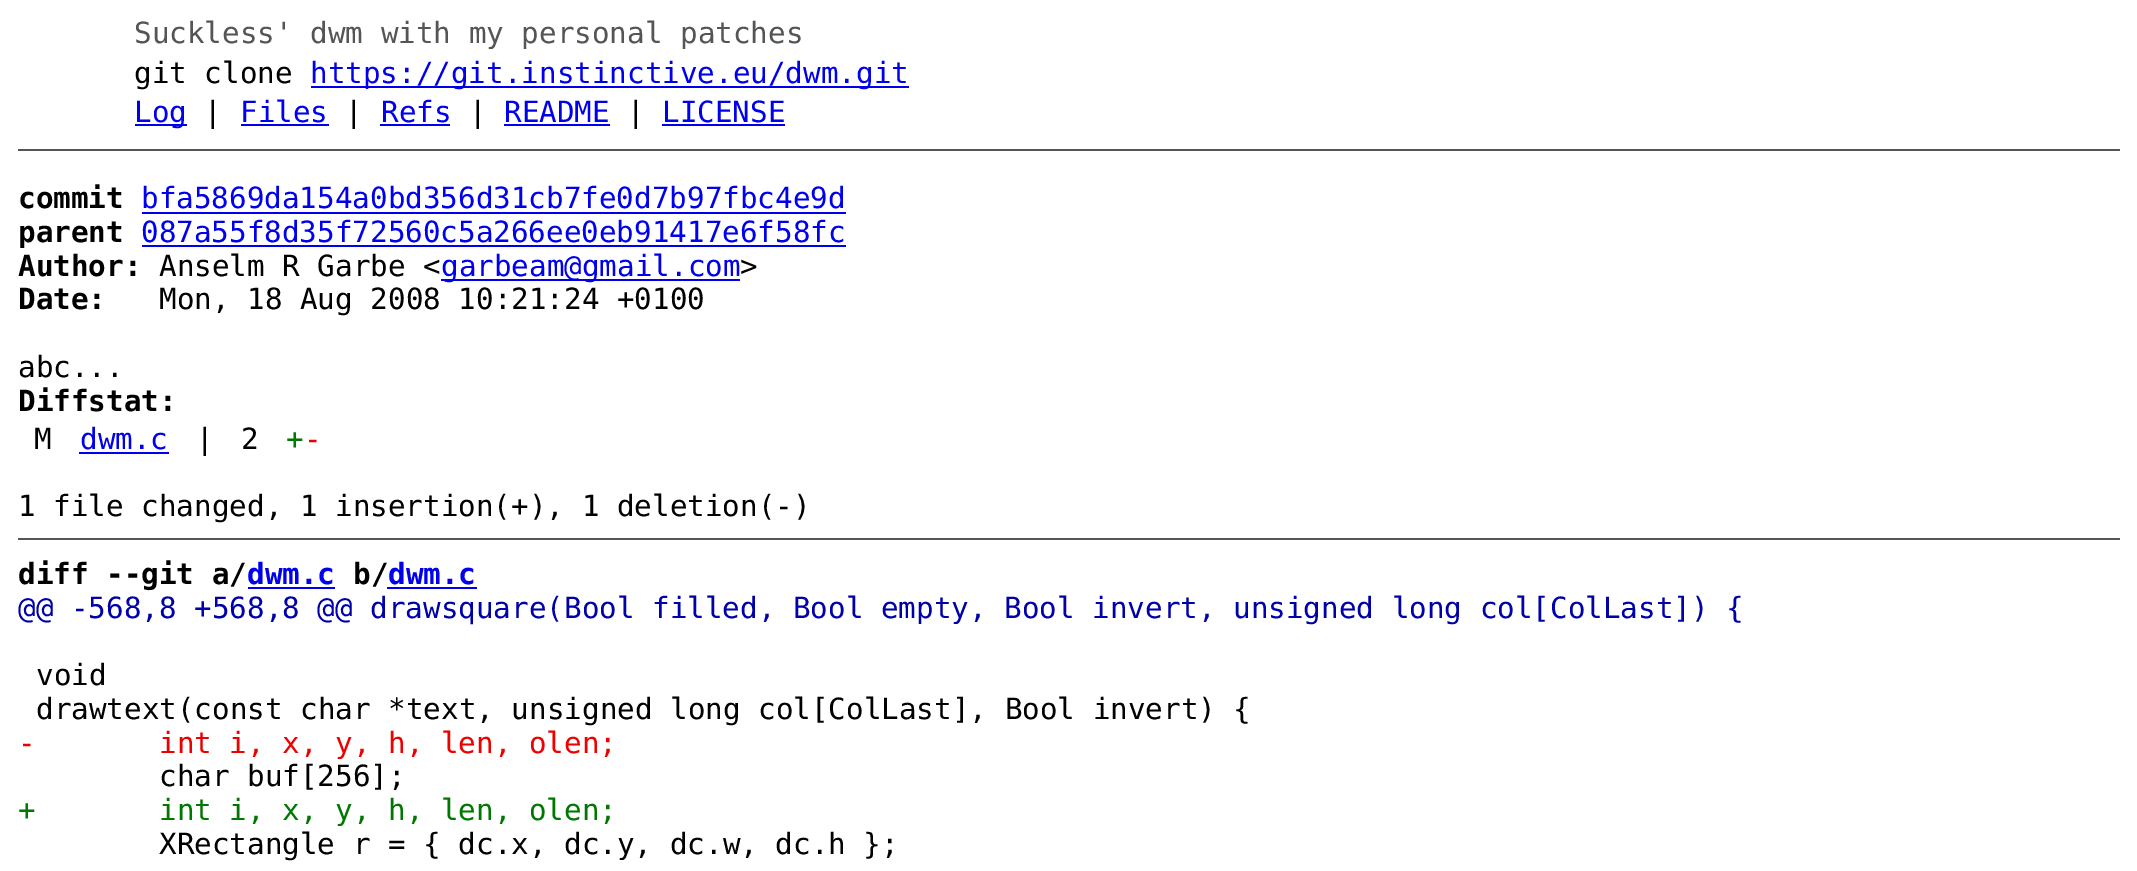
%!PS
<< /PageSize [2137 871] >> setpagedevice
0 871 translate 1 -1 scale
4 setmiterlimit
1 setgray
0 0 2137 871 rectfill
/DejaVuSansMono-Regular [29.25 0 0 -29.25 0 0] selectfont
0.333 setgray
134 43 moveto (Suckless' dwm with my personal patches) show
0 setgray
134 83 moveto (git clone) show
0 0 0.933 setrgbcolor
311 86 598 2 rectfill
310 83 moveto (https://git.instinctive.eu/dwm.git) show
135 124 52 2 rectfill
134 122 moveto (Log) show
0 setgray
204 122 moveto (|) show
0 0 0.933 setrgbcolor
240 122 moveto (Files) show
241 124 88 2 rectfill
0 setgray
345 122 moveto (|) show
0 0 0.933 setrgbcolor
381 122 moveto (Refs) show
380 124 70 2 rectfill
0 setgray
469 122 moveto (|) show
0 0 0.933 setrgbcolor
504 122 moveto (README) show
504 124 106 2 rectfill
0 setgray
627 122 moveto (|) show
0 0 0.933 setrgbcolor
662 122 moveto (LICENSE) show
662 124 123 2 rectfill
0.333 setgray
18 149 2102 2 rectfill
/DejaVuSansMono-Bold [29.25 0 0 -29.25 0 0] selectfont
0 setgray
18 208 moveto (commit) show
/DejaVuSansMono-Regular [29.25 0 0 -29.25 0 0] selectfont
0 0 0.933 setrgbcolor
141 208 moveto (bfa5869da154a0bd356d31cb7fe0d7b97fbc4e9d) show
142 212 704 2 rectfill
/DejaVuSansMono-Bold [29.25 0 0 -29.25 0 0] selectfont
0 setgray
18 242 moveto (parent) show
/DejaVuSansMono-Regular [29.25 0 0 -29.25 0 0] selectfont
0 0 0.933 setrgbcolor
141 242 moveto (087a55f8d35f72560c5a266ee0eb91417e6f58fc) show
142 245 704 2 rectfill
/DejaVuSansMono-Bold [29.25 0 0 -29.25 0 0] selectfont
0 setgray
18 276 moveto (Author:) show
/DejaVuSansMono-Regular [29.25 0 0 -29.25 0 0] selectfont
159 276 moveto (Anselm R Garbe <) show
0 0 0.933 setrgbcolor
441 279 299 2 rectfill
441 276 moveto (garbeam@gmail.com) show
0 setgray
740 276 moveto (>) show
/DejaVuSansMono-Bold [29.25 0 0 -29.25 0 0] selectfont
18 309 moveto (Date:) show
/DejaVuSansMono-Regular [29.25 0 0 -29.25 0 0] selectfont
159 309 moveto (Mon, 18 Aug 2008 10:21:24 +0100) show
18 377 moveto (abc...) show
/DejaVuSansMono-Bold [29.25 0 0 -29.25 0 0] selectfont
18 411 moveto (Diffstat:) show
/DejaVuSansMono-Regular [29.25 0 0 -29.25 0 0] selectfont
34 449 moveto (M) show
0 0 0.933 setrgbcolor
80 449 moveto (dwm.c) show
79 452 90 2 rectfill
0 setgray
196 449 moveto (|) show
241 449 moveto (2) show
0 0.467 0 setrgbcolor
286 449 moveto (+) show
0.933 0 0 setrgbcolor
304 449 moveto (-) show
0 setgray
18 516 moveto (1 file changed, 1 insertion\(+\), 1 deletion\(-\)) show
0.333 setgray
18 538 2102 2 rectfill
/DejaVuSansMono-Bold [29.25 0 0 -29.25 0 0] selectfont
0 setgray
18 584 moveto (diff --git a/) show
0 0 0.933 setrgbcolor
248 587 87 2 rectfill
247 584 moveto (dwm.c) show
0 setgray
353 584 moveto (b/) show
0 0 0.933 setrgbcolor
387 587 90 2 rectfill
388 584 moveto (dwm.c) show
/DejaVuSansMono-Regular [29.25 0 0 -29.25 0 0] selectfont
0 0 0.667 setrgbcolor
18 618 moveto (@@ -568,8 +568,8 @@ drawsquare\(Bool filled, Bool empty, Bool invert, unsigned long col[ColLast]\) {) show
0 setgray
36 685 moveto (void) show
36 719 moveto (drawtext\(const char *text, unsigned long col[ColLast], Bool invert\) {) show
0.933 0 0 setrgbcolor
18 753 moveto (-) show
159 753 moveto (int i, x, y, h, len, olen;) show
0 setgray
159 786 moveto (char buf[256];) show
0 0.467 0 setrgbcolor
18 820 moveto (+) show
159 820 moveto (int i, x, y, h, len, olen;) show
0 setgray
159 854 moveto (XRectangle r = { dc.x, dc.y, dc.w, dc.h };) show
showpage
